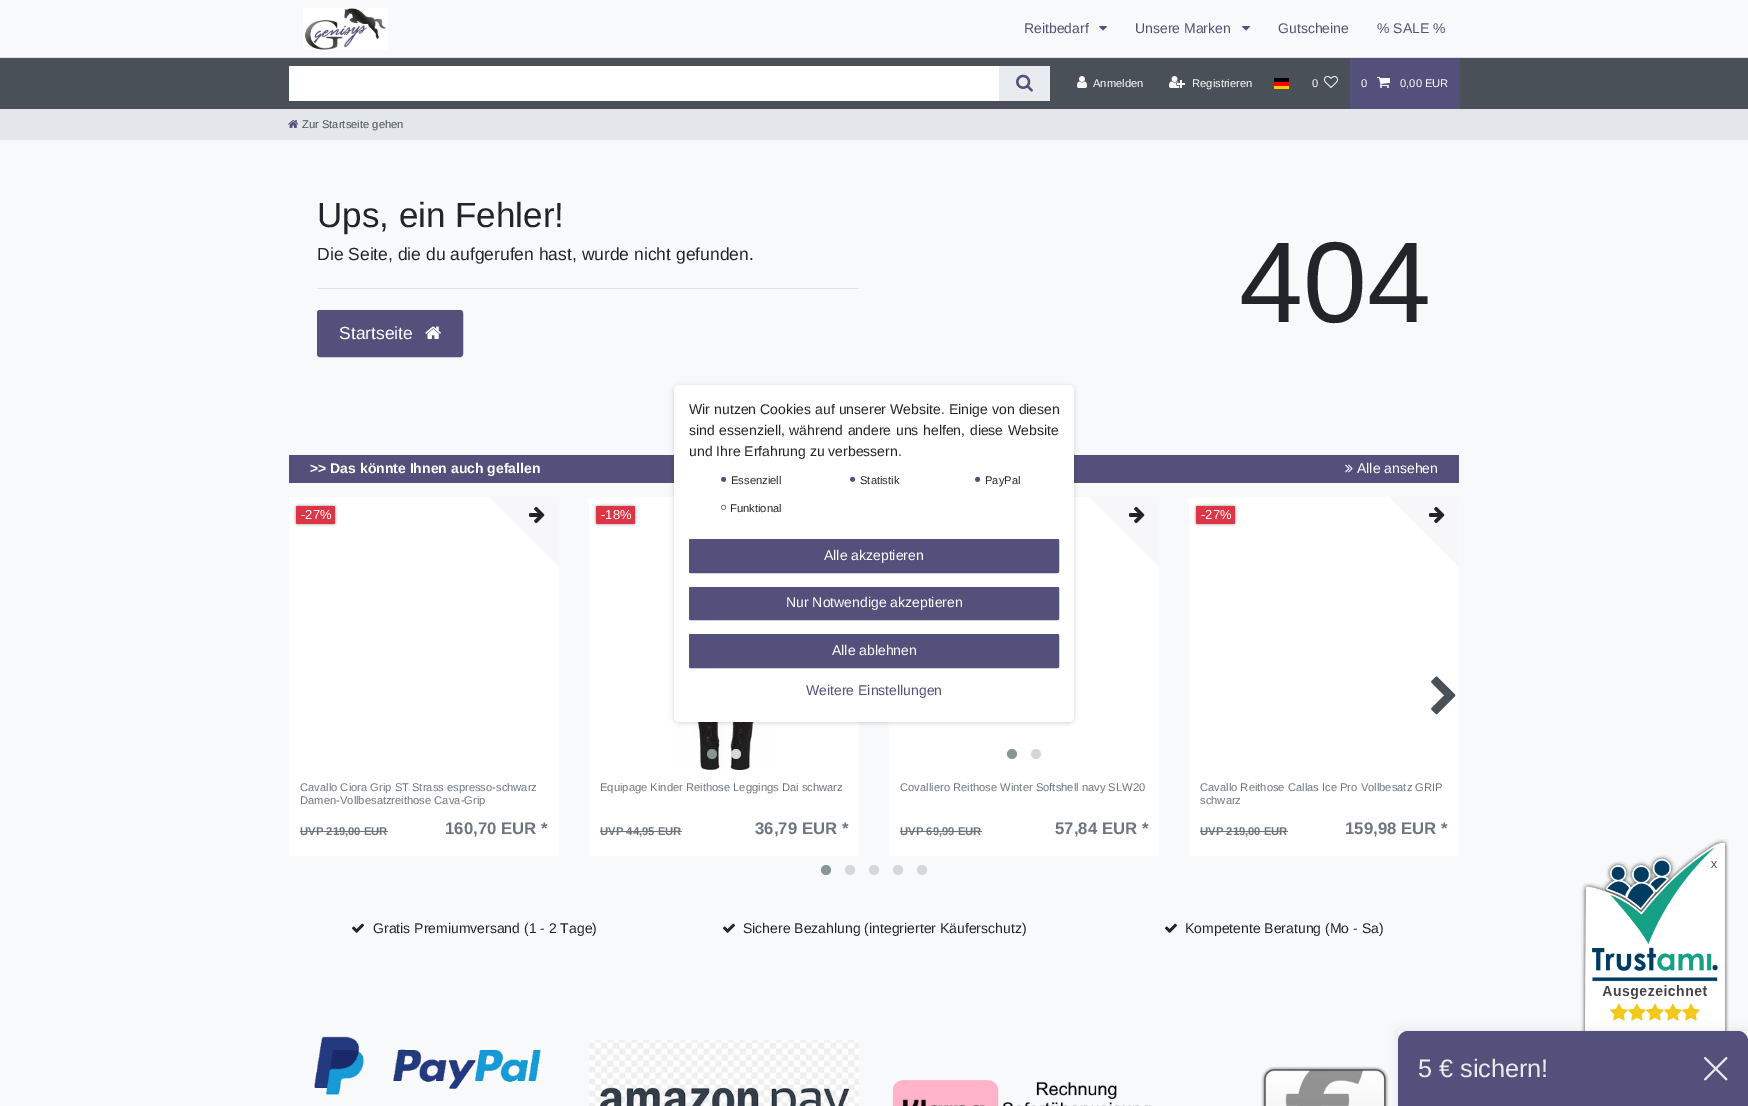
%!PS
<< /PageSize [1748 1106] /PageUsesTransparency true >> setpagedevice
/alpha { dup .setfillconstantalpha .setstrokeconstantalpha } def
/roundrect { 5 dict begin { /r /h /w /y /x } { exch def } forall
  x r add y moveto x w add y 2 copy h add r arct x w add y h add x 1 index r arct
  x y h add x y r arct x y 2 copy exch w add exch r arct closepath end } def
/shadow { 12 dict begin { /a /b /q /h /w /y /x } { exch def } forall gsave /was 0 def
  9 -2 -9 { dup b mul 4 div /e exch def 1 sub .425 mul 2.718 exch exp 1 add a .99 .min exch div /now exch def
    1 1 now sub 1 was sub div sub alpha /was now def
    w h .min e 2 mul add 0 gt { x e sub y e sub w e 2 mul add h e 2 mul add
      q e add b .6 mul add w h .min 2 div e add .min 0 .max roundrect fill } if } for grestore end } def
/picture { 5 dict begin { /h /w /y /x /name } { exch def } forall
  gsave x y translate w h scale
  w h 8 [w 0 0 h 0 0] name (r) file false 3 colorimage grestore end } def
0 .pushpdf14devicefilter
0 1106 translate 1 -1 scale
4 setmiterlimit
0.973 0.976 0.98 setrgbcolor
0 0 1748 1106 rectfill
0.871 0.886 0.902 setrgbcolor
0 57 1748 1 rectfill
(img1.rgb) 303 8 85 42 picture
/LiberationSans-Regular [14 0 0 -14 0 0] selectfont
0.325 0.314 0.482 setrgbcolor
1024 33 moveto (Reitbedarf) show
(img2.rgb) 1099 26 8 5 picture
1135 33 moveto (Unsere Marken) show
(img2.rgb) 1242 26 8 5 picture
1278 33 moveto (Gutscheine) show
1377 33 moveto (% SALE %) show
0.286 0.314 0.341 setrgbcolor
0 58 1748 51 rectfill
1 setgray
289 66 710 35 rectfill
0.914 0.925 0.937 setrgbcolor
999 66 51 35 rectfill
(img3.rgb) 1016 74 17 18 picture
(img4.rgb) 1077 76 10 12 picture
/LiberationSans-Regular [11.2 0 0 -11.2 0 0] selectfont
1 setgray
1093 87 moveto (Anmelden) show
(img5.rgb) 1169 76 16 12 picture
1192 87 moveto (Registrieren) show
1 0.8 0 setrgbcolor
1274 86 15 3 rectfill
0 setgray
1274 78 15 4 rectfill
1 0 0 setrgbcolor
1274 82 15 4 rectfill
1 setgray
1312 87 moveto (0) show
(img6.rgb) 1324 76 14 12 picture
0.325 0.314 0.482 setrgbcolor
1350 58 110 51 rectfill
1 setgray
1361 87 moveto (0) show
(img7.rgb) 1377 77 13 11 picture
1400 87 moveto (0,00 EUR) show
0.89 0.906 0.922 setrgbcolor
0 109 1748 31 rectfill
(img8.rgb) 288 120 11 8 picture
0.286 0.314 0.341 setrgbcolor
302 128 moveto (Zur Startseite gehen) show
/LiberationSans-Regular [35 0 0 -35 0 0] selectfont
0.129 0.145 0.161 setrgbcolor
317 227 moveto (Ups, ein Fehler!) show
/LiberationSans-Regular [17.5 0 0 -17.5 0 0] selectfont
317 260 moveto (Die Seite, die du aufgerufen hast, wurde nicht gefunden.) show
0.871 0.886 0.902 setrgbcolor
317 288 542 1 rectfill
0.325 0.314 0.482 setrgbcolor
317.5 310.5 145 46 2.5 roundrect gsave fill grestore
stroke
1 setgray
339 339 moveto (Startseite) show
(img9.rgb) 425 326 16 13 picture
/LiberationSans-Regular [115 0 0 -115 0 0] selectfont
0.129 0.145 0.161 setrgbcolor
1239 322 moveto (404) show
0.325 0.314 0.482 setrgbcolor
289 455 1170 28 rectfill
/LiberationSans-Bold [14 0 0 -14 0 0] selectfont
1 setgray
310 473 moveto (>> Das könnte Ihnen auch gefallen) show
(img10.rgb) 1345 464 8 9 picture
/LiberationSans-Regular [14 0 0 -14 0 0] selectfont
1357 473 moveto (Alle ansehen) show
289 497 270 359 rectfill
0 setgray
296 506 39 18 1.5 1.5 0.4 shadow
0.863 0.208 0.271 setrgbcolor
296 506 39 18 1.5 roundrect fill
/LiberationSans-Regular [13 0 0 -13 0 0] selectfont
1 setgray
301 519 moveto (-27%) show
0.969 0.969 0.976 setrgbcolor
newpath 559 497 moveto 559 567 lineto 489 497 lineto closepath fill
(img11.rgb) 529 506 16 18 picture
/LiberationSans-Regular [11.2 0 0 -11.2 0 0] selectfont
0.424 0.459 0.49 setrgbcolor
300 791 moveto (Cavallo Ciora Grip ST Strass espresso-schwarz) show
300 804 moveto (Damen-Vollbesatzreithose Cava-Grip) show
/LiberationSans-Bold [11.25 0 0 -11.25 0 0] selectfont
300 835 moveto (UVP 219,00 EUR) show
300 831 88 1 rectfill
/LiberationSans-Bold [16.75 0 0 -16.75 0 0] selectfont
445 834 moveto (160,70 EUR *) show
1 setgray
589 497 270 359 rectfill
0 setgray
596 506 39 18 1.5 1.5 0.4 shadow
0.863 0.208 0.271 setrgbcolor
596 506 39 18 1.5 roundrect fill
/LiberationSans-Regular [13 0 0 -13 0 0] selectfont
1 setgray
601 519 moveto (-18%) show
(img12.rgb) 677 721 93 49 picture
0.525 0.592 0.569 setrgbcolor
newpath 712 754 5 0 360 arc closepath fill
0.839 setgray
newpath 736 754 5 0 360 arc closepath fill
/LiberationSans-Regular [11.2 0 0 -11.2 0 0] selectfont
0.424 0.459 0.49 setrgbcolor
600 791 moveto (Equipage Kinder Reithose Leggings Dai schwarz) show
/LiberationSans-Bold [11.25 0 0 -11.25 0 0] selectfont
600 835 moveto (UVP 44,95 EUR) show
600 831 82 1 rectfill
/LiberationSans-Bold [16.75 0 0 -16.75 0 0] selectfont
755 834 moveto (36,79 EUR *) show
1 setgray
889 497 270 359 rectfill
0.969 0.969 0.976 setrgbcolor
newpath 1159 497 moveto 1159 567 lineto 1089 497 lineto closepath fill
(img11.rgb) 1129 506 16 18 picture
0.525 0.592 0.569 setrgbcolor
newpath 1012 754 5 0 360 arc closepath fill
0.839 setgray
newpath 1036 754 5 0 360 arc closepath fill
/LiberationSans-Regular [11.2 0 0 -11.2 0 0] selectfont
0.424 0.459 0.49 setrgbcolor
900 791 moveto (Covalliero Reithose Winter Softshell navy SLW20) show
/LiberationSans-Bold [11.25 0 0 -11.25 0 0] selectfont
900 835 moveto (UVP 69,99 EUR) show
900 831 82 1 rectfill
/LiberationSans-Bold [16.75 0 0 -16.75 0 0] selectfont
1055 834 moveto (57,84 EUR *) show
1 setgray
1189 497 270 359 rectfill
0 setgray
1196 506 39 18 1.5 1.5 0.4 shadow
0.863 0.208 0.271 setrgbcolor
1196 506 39 18 1.5 roundrect fill
/LiberationSans-Regular [13 0 0 -13 0 0] selectfont
1 setgray
1201 519 moveto (-27%) show
0.969 0.969 0.976 setrgbcolor
newpath 1459 497 moveto 1459 567 lineto 1389 497 lineto closepath fill
(img11.rgb) 1429 506 16 18 picture
/LiberationSans-Regular [11.2 0 0 -11.2 0 0] selectfont
0.424 0.459 0.49 setrgbcolor
1200 791 moveto (Cavallo Reithose Callas Ice Pro Vollbesatz GRIP) show
1200 804 moveto (schwarz) show
/LiberationSans-Bold [11.25 0 0 -11.25 0 0] selectfont
1200 835 moveto (UVP 219,00 EUR) show
1200 831 88 1 rectfill
/LiberationSans-Bold [16.75 0 0 -16.75 0 0] selectfont
1345 834 moveto (159,98 EUR *) show
(img13.rgb) 1431 676 25 39 picture
0.525 0.592 0.569 setrgbcolor
newpath 826 870 5 0 360 arc closepath fill
0.839 setgray
newpath 850 870 5 0 360 arc closepath fill
newpath 874 870 5 0 360 arc closepath fill
newpath 898 870 5 0 360 arc closepath fill
newpath 922 870 5 0 360 arc closepath fill
(img14.rgb) 352 923 12 10 picture
/LiberationSans-Regular [14 0 0 -14 0 0] selectfont
0.129 0.145 0.161 setrgbcolor
373 933 moveto (Gratis Premiumversand \(1 - 2 Tage\)) show
(img14.rgb) 723 923 12 10 picture
743 933 moveto (Sichere Bezahlung \(integrierter Käuferschutz\)) show
(img14.rgb) 1165 923 12 10 picture
1185 933 moveto (Kompetente Beratung \(Mo - Sa\)) show
(img15.rgb) 314 1036 227 59 picture
(img16.rgb) 589 1040 270 66 picture
(img17.rgb) 892 1080 259 26 picture
(img18.rgb) 1261 1066 128 40 picture
0 setgray
674 386 400 337 5 2.5 0.15 shadow
1 setgray
674 385 400 337 5 roundrect fill
0.129 0.145 0.161 setrgbcolor
689 414 moveto 0.25 0 32 (Wir nutzen Cookies auf unserer Website. Einige von diesen) widthshow
689 435 moveto 0.75 0 32 (sind essenziell, während andere uns helfen, diese Website) widthshow
689 456 moveto (und Ihre Erfahrung zu verbessern.) show
(img19.rgb) 721 476 6 6 picture
/LiberationSans-Regular [11.2 0 0 -11.2 0 0] selectfont
731 484 moveto (Essenziell) show
(img19.rgb) 850 476 6 6 picture
860 484 moveto (Statistik) show
(img19.rgb) 975 476 6 6 picture
985 484 moveto (PayPal) show
(img20.rgb) 721 504 6 6 picture
730 512 moveto (Funktional) show
0.325 0.314 0.482 setrgbcolor
689.5 539.5 369 33 1 roundrect gsave fill grestore
stroke
/LiberationSans-Regular [14 0 0 -14 0 0] selectfont
1 setgray
824 560 moveto (Alle akzeptieren) show
0.325 0.314 0.482 setrgbcolor
689.5 587.5 369 32 1 roundrect gsave fill grestore
stroke
1 setgray
786 607 moveto (Nur Notwendige akzeptieren) show
0.325 0.314 0.482 setrgbcolor
689.5 634.5 369 33 1 roundrect gsave fill grestore
stroke
1 setgray
832 655 moveto (Alle ablehnen) show
0.325 0.314 0.482 setrgbcolor
806 695 moveto (Weitere Einstellungen) show
(img21.rgb) 1581 839 148 192 picture
gsave
newpath 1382 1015 moveto 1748 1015 lineto 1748 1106 lineto 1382 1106 lineto closepath 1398 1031 moveto 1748 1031 lineto 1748 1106 lineto 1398 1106 lineto closepath eoclip newpath
0 setgray
1398 1031 350 75 0 5 0.1 shadow
grestore
newpath 1408 1031 moveto 1738 1031 lineto 1743.5 1031 1748 1035.5 1748 1041 curveto 1748 1106 lineto 1398 1106 lineto 1398 1041 lineto 1398 1035.5 1402.5 1031 1408 1031 curveto closepath fill
/LiberationSans-Regular [25.25 0 0 -25.25 0 0] selectfont
0.922 setgray
1418 1077 moveto (5 € sichern!) show
(img22.rgb) 1704 1057 24 24 picture
.poppdf14devicefilter showpage
